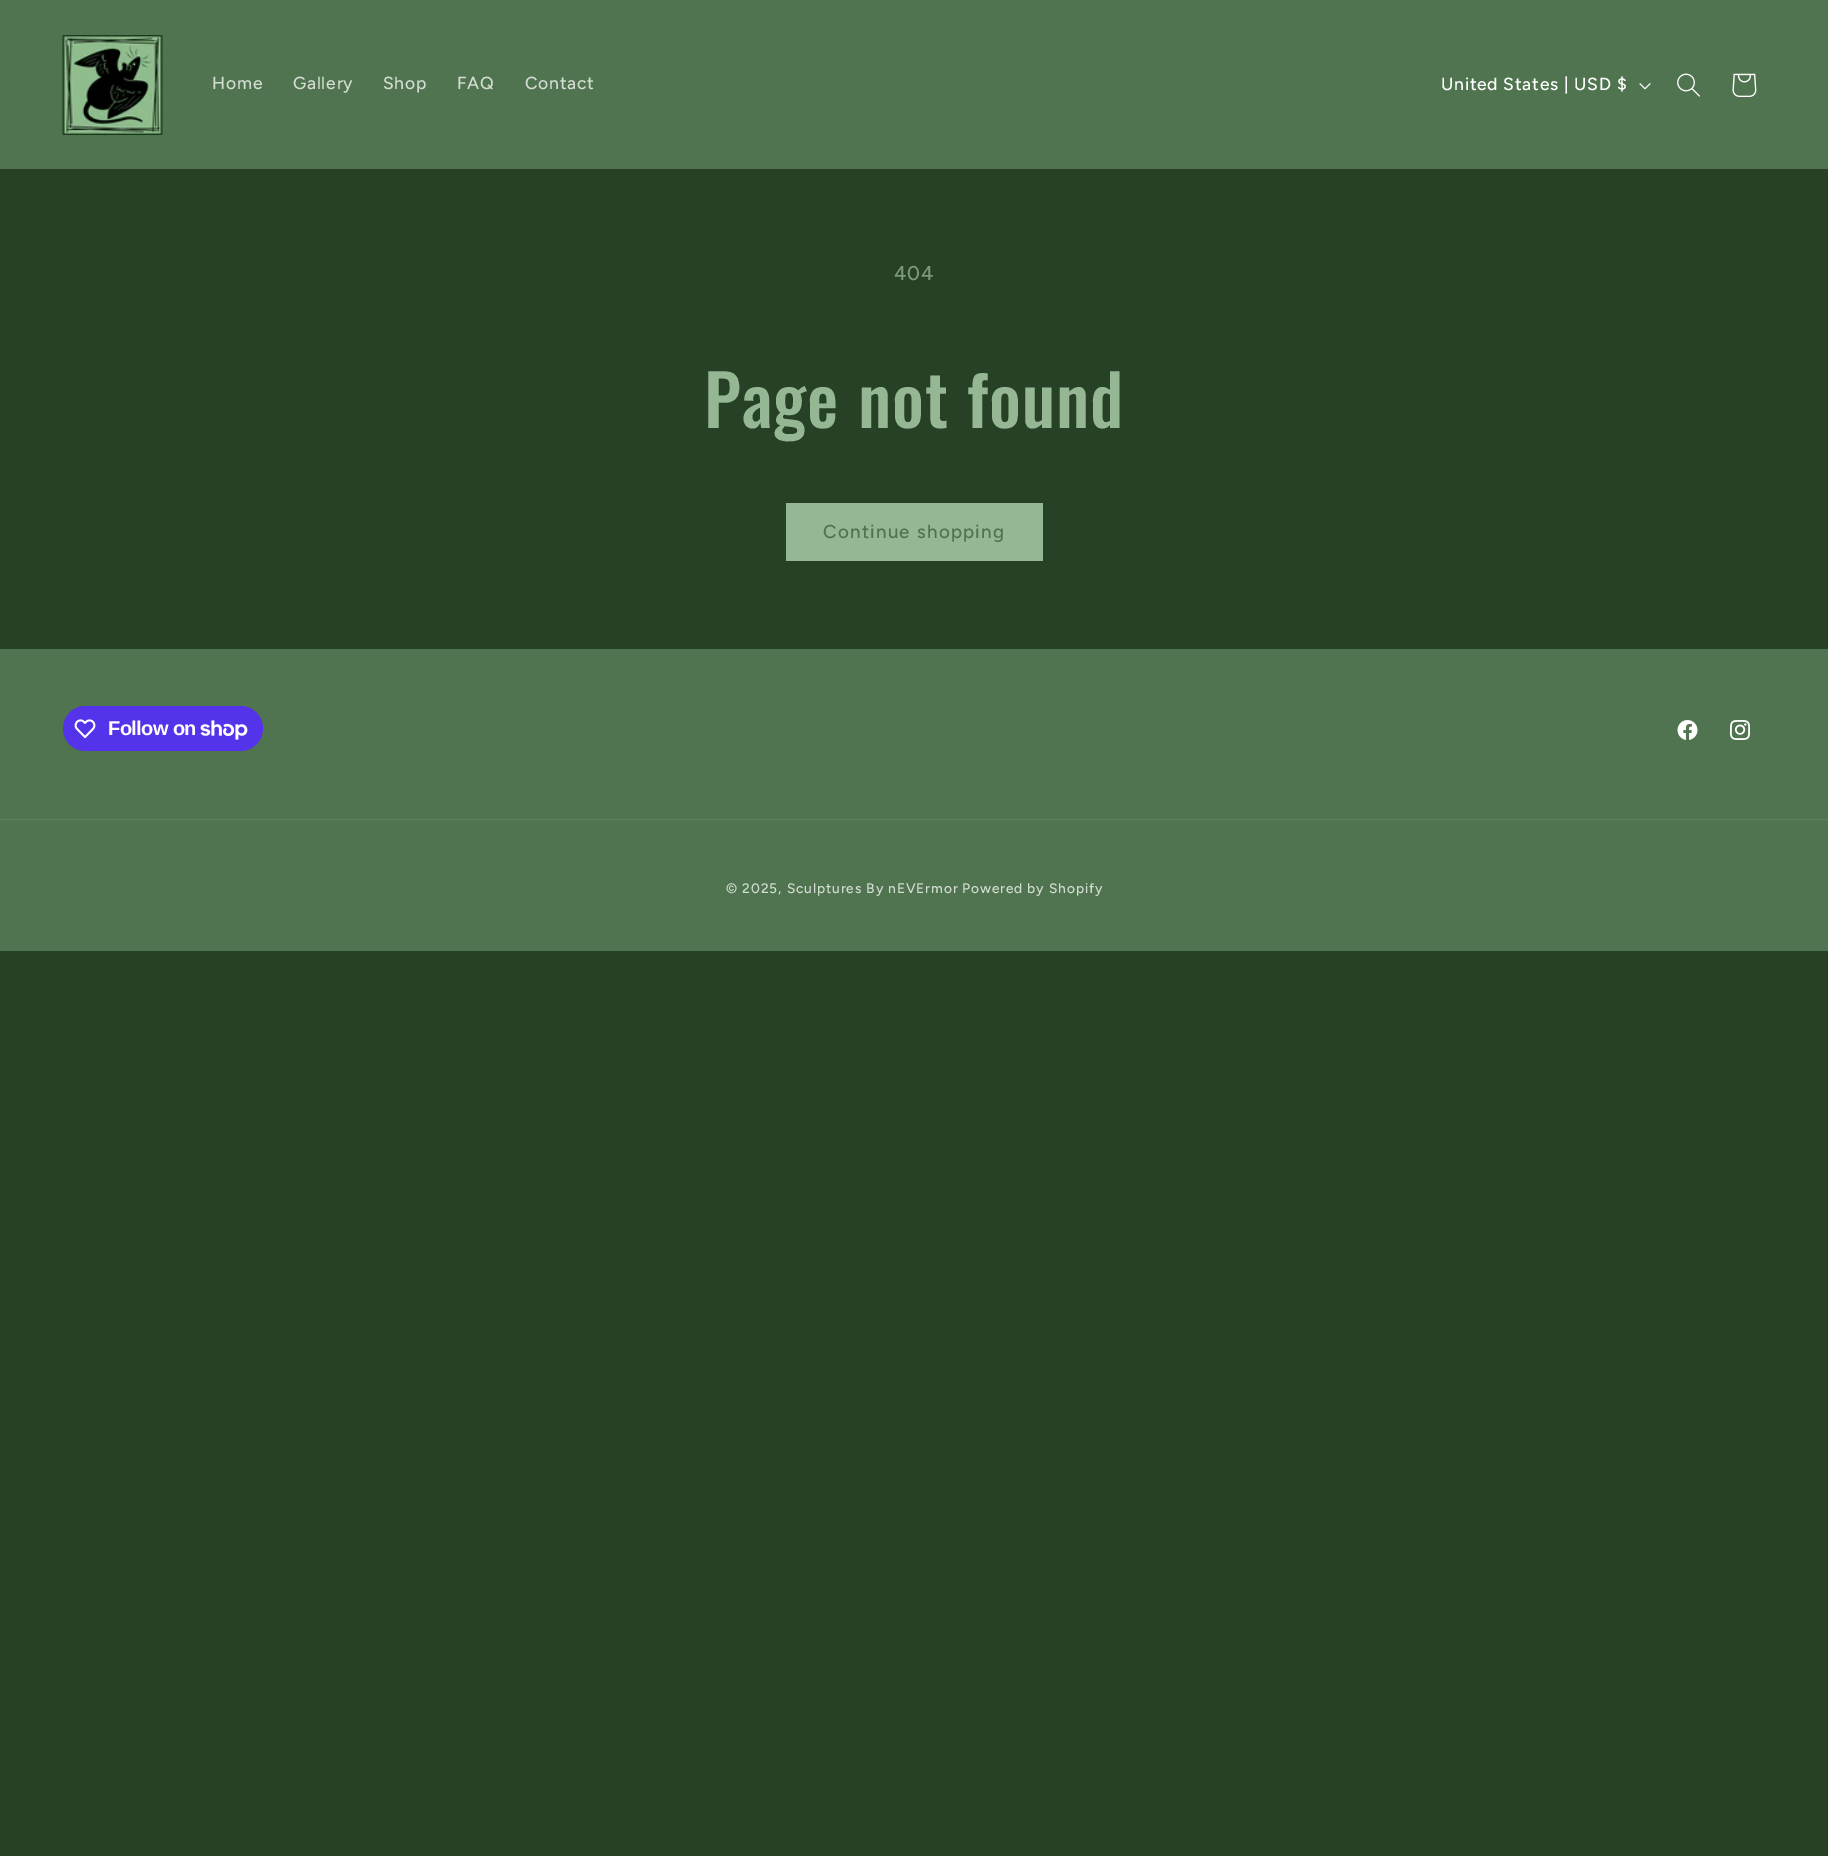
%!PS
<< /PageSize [1828 1856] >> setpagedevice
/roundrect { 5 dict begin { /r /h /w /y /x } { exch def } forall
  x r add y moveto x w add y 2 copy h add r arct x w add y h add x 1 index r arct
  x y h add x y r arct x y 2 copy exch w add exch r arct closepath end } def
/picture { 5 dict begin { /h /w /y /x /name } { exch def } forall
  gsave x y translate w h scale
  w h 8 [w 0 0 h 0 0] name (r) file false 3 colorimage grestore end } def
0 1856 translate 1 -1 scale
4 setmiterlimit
0.149 0.255 0.145 setrgbcolor
0 0 1828 1856 rectfill
0.314 0.455 0.31 setrgbcolor
0 0 1828 169 rectfill
(img1.rgb) 62 35 101 100 picture
/Figtree-Medium [17.5 0 0 -17.5 0 0] selectfont
0.827 0.863 0.827 setrgbcolor
212 89 moveto 0.75 0 (Home) ashow
293 89 moveto 0.75 0 (Gallery) ashow
383 89 moveto 0.75 0 (Shop) ashow
457 89 moveto 0.75 0 (FAQ) ashow
525 89 moveto 0.75 0 (Contact) ashow
1 setgray
1441 90 moveto 0.75 0 (United States | USD $) ashow
(img2.rgb) 1639 83 12 7 picture
(img3.rgb) 1677 73 23 24 picture
(img4.rgb) 1732 73 25 24 picture
/Figtree-Medium [20 0 0 -20 0 0] selectfont
0.478 0.604 0.471 setrgbcolor
894 280 moveto 0.75 0 (404) ashow
/Oswald-Medium [70 0 0 -70 0 0] selectfont
0.588 0.718 0.58 setrgbcolor
704 428 moveto 1 0 (Page not found) ashow
786 503 257 58 rectfill
/Figtree-Medium [18.75 0 0 -18.75 0 0] selectfont
0.314 0.455 0.31 setrgbcolor
823 538 moveto 1.25 0 (Continue shopping) ashow
0 649 1828 302 rectfill
0.329 0.2 0.922 setrgbcolor
63 706 200 45 22.5 roundrect fill
(img5.rgb) 74 719 22 20 picture
/LiberationSans-Bold [20 0 0 -20 0 0] selectfont
1 setgray
108 735 moveto -0.6 0 (Follow on) ashow
(img6.rgb) 200 720 48 20 picture
(img7.rgb) 1677 720 21 20 picture
(img8.rgb) 1730 720 20 20 picture
0.369 0.498 0.365 setrgbcolor
0 819 1828 1 rectfill
/Figtree-Medium [13.75 0 0 -13.75 0 0] selectfont
0.827 0.863 0.827 setrgbcolor
726 893 moveto 0.9 0 (© 2025, Sculptures By nEVErmor) ashow
962 893 moveto 0.9 0 (Powered by Shopify) ashow
showpage
